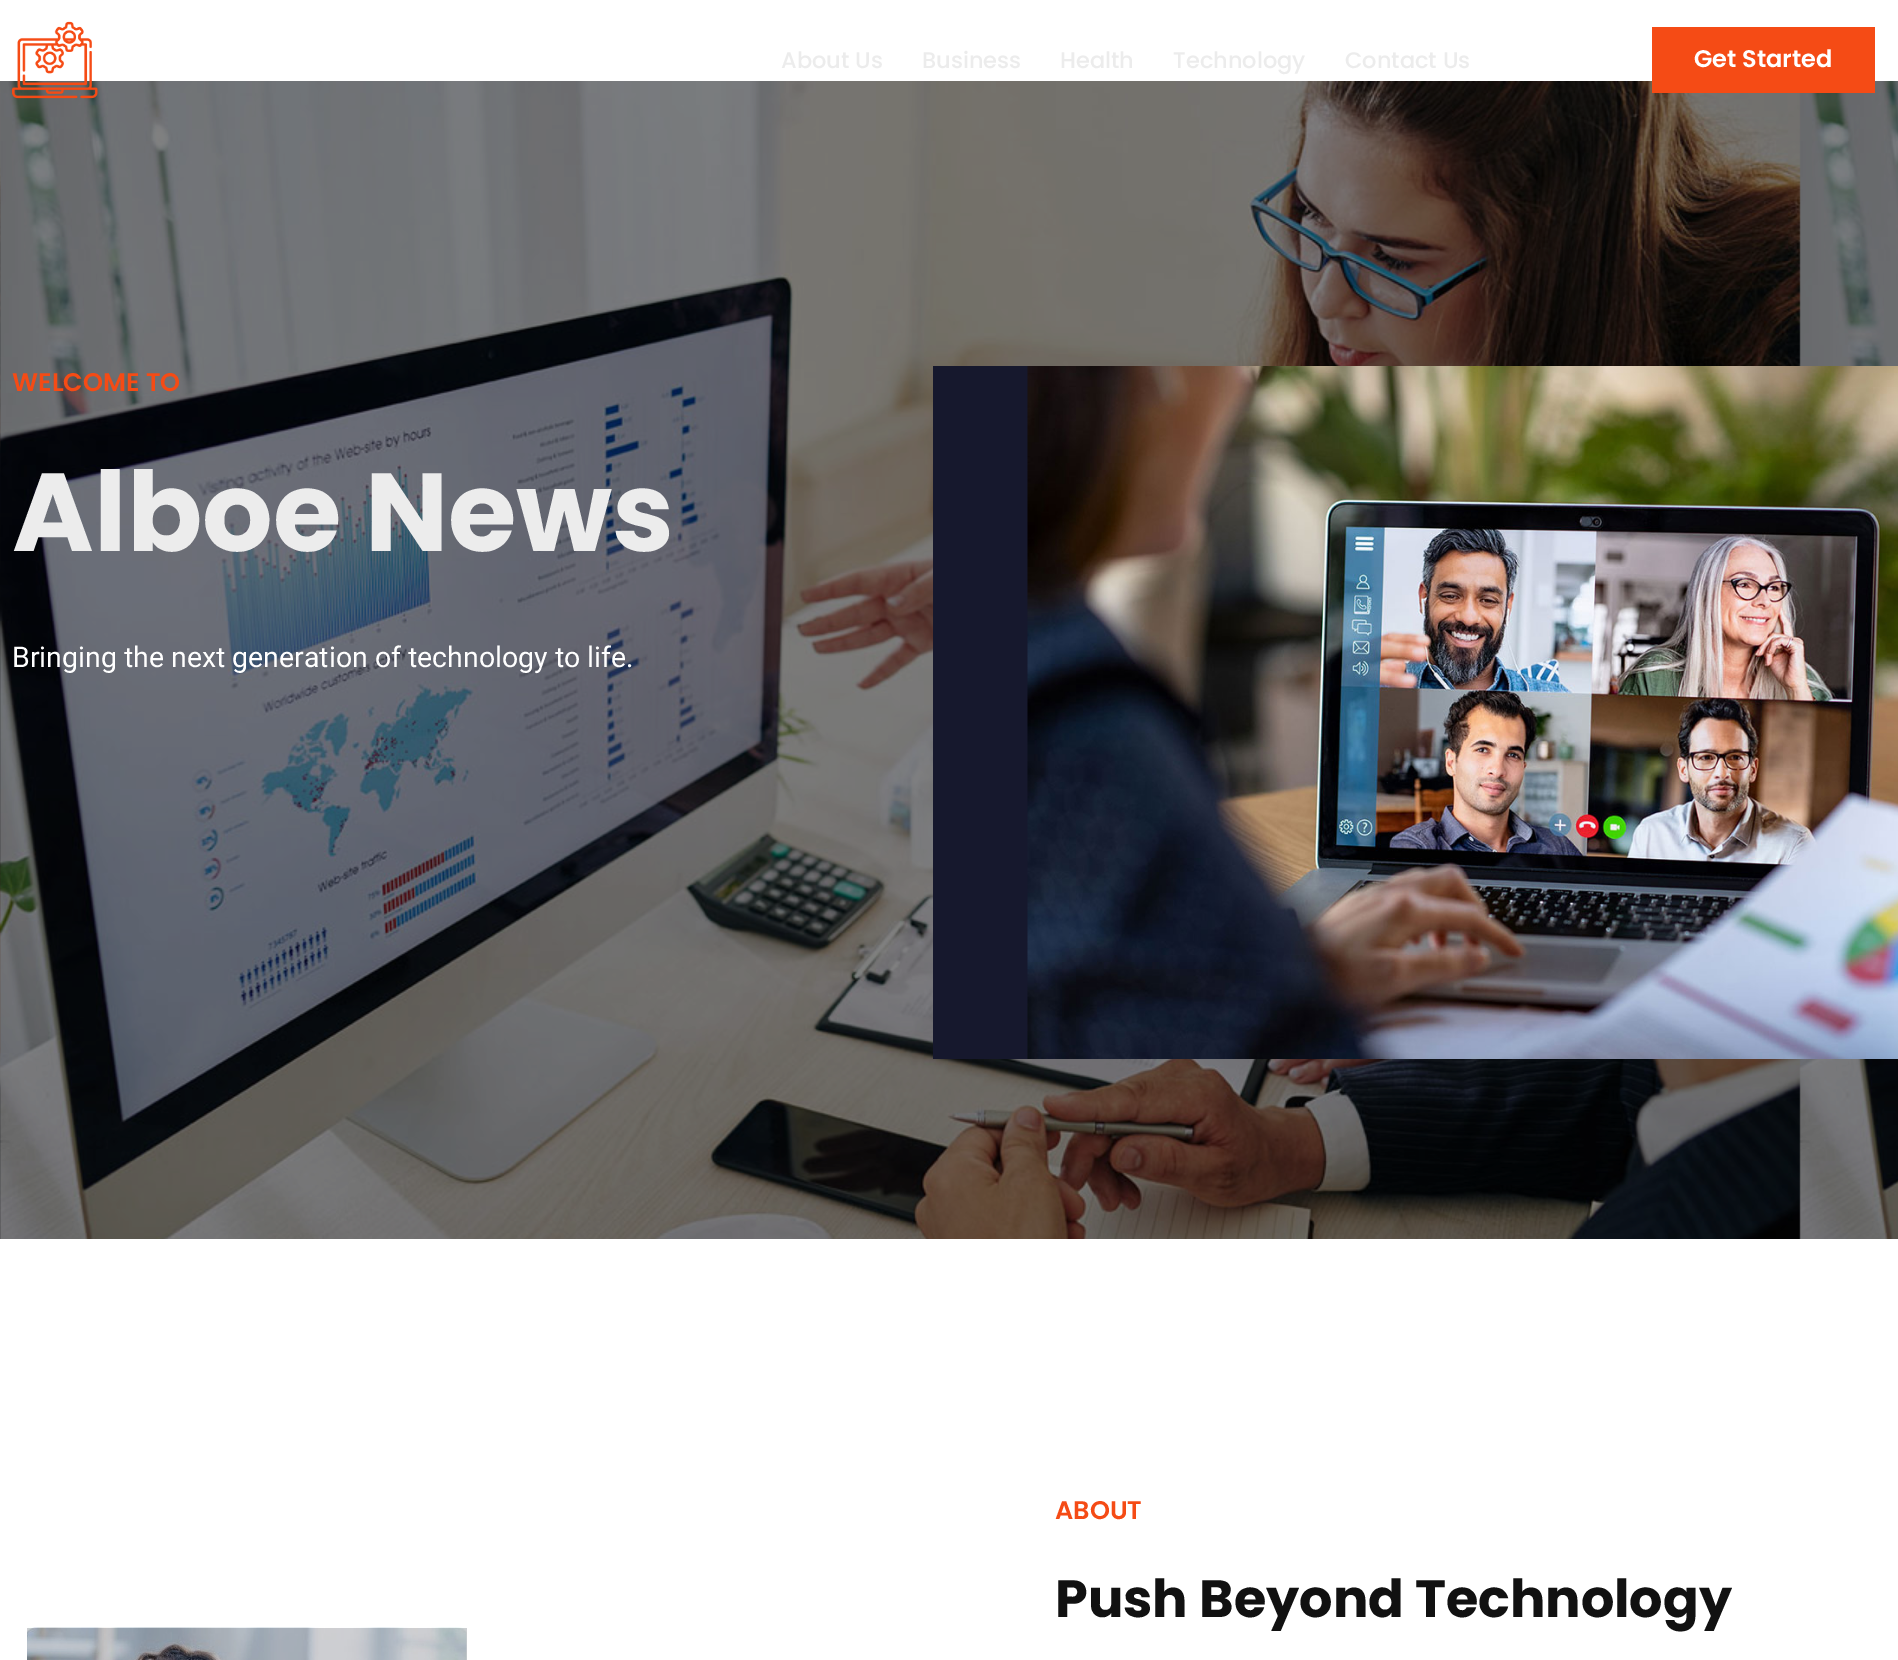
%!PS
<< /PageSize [1898 1660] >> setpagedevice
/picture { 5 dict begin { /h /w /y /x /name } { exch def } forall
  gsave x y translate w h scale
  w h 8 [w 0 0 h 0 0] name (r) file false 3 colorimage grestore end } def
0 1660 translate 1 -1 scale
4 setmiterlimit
1 setgray
0 0 1898 1660 rectfill
0.812 0.812 0.824 setrgbcolor
466 1628 1 32 rectfill
(img2.rgb) 0 81 1898 1158 picture
(img1.rgb) 12 21 86 78 picture
/Poppins-Medium [22.5 0 0 -22.5 0 0] selectfont
0.925 setgray
781 68 moveto (About Us) show
922 68 moveto (Business) show
1060 68 moveto (Health) show
1173 68 moveto (Technology) show
1345 68 moveto (Contact Us) show
0.961 0.294 0.082 setrgbcolor
1652 27 223 66 rectfill
/Poppins-SemiBold [24 0 0 -24 0 0] selectfont
1 setgray
1694 67 moveto (Get Started) show
/Poppins-SemiBold [25.5 0 0 -25.5 0 0] selectfont
0.961 0.294 0.082 setrgbcolor
12 391 moveto (WELCOME TO) show
/Poppins-Bold [111 0 0 -111 0 0] selectfont
0.925 setgray
12 551 moveto (Alboe News) show
/Roboto-Regular [28.5 0 0 -28.5 0 0] selectfont
1 setgray
12 667 moveto (Bringing the next generation of technology to life.) show
0.086 0.094 0.176 setrgbcolor
933 366 95 693 rectfill
(img3.rgb) 1027 366 871 693 picture
/Poppins-SemiBold [25.5 0 0 -25.5 0 0] selectfont
0.961 0.294 0.082 setrgbcolor
1055 1519 moveto (ABOUT) show
/Poppins-Bold [52.5 0 0 -52.5 0 0] selectfont
0.067 setgray
1055 1617 moveto (Push Beyond Technology) show
(img4.rgb) 27 1627 440 33 picture
showpage
